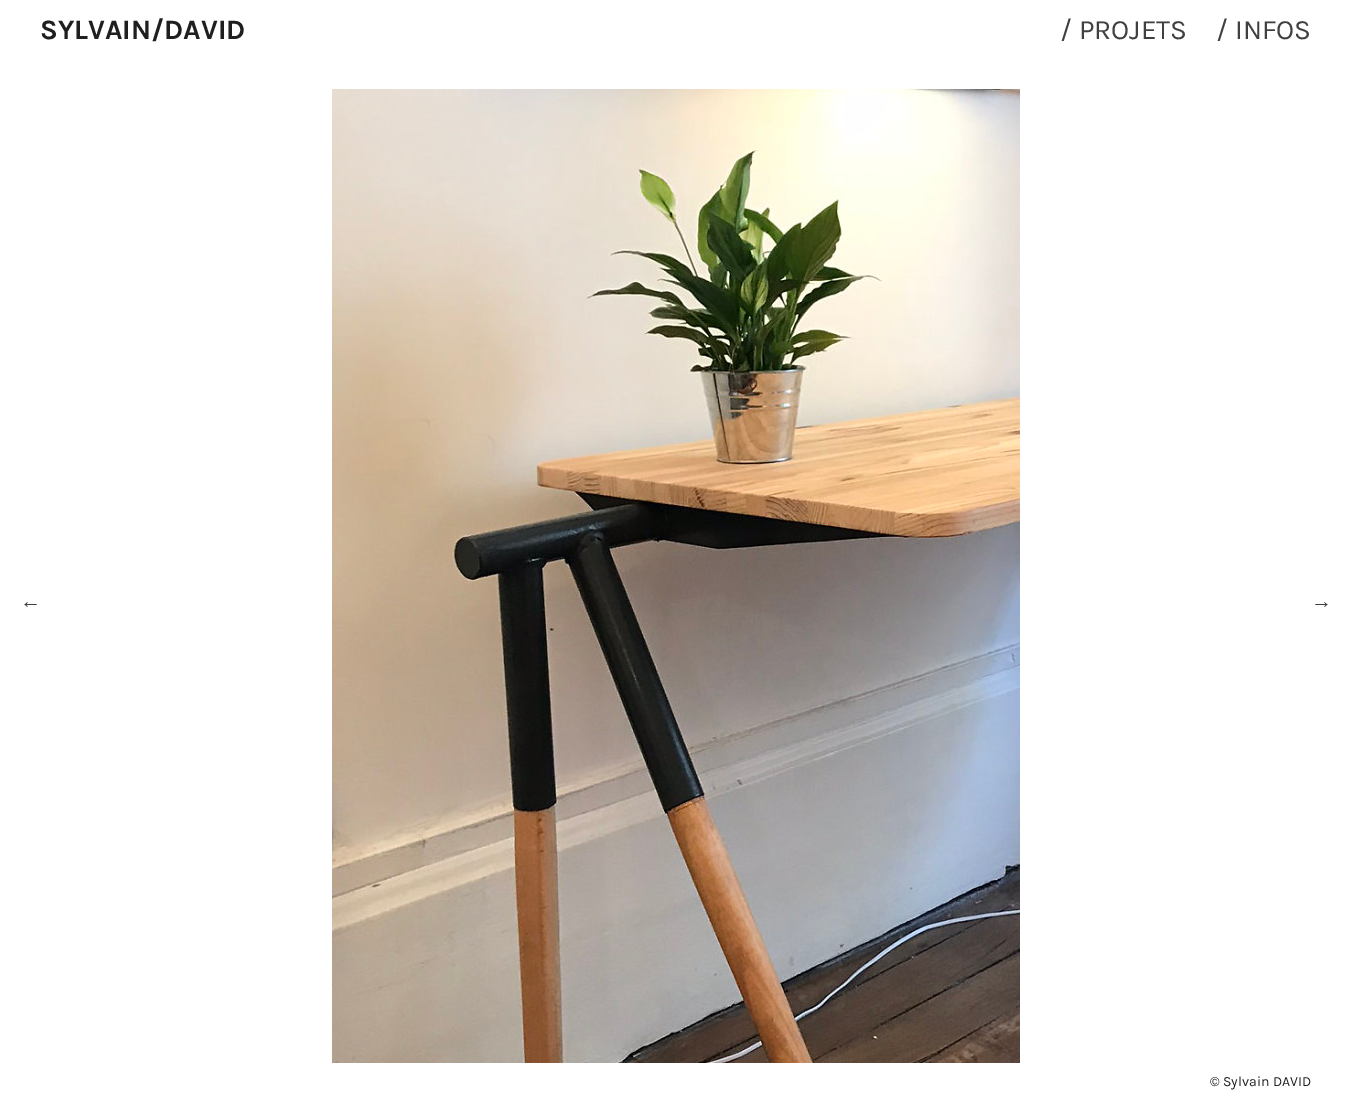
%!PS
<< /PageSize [1351 1101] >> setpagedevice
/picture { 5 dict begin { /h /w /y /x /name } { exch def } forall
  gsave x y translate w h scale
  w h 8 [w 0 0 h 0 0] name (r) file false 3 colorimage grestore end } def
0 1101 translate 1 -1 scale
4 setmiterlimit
1 setgray
0 0 1351 1101 rectfill
/Karla-Bold [28 0 0 -28 0 0] selectfont
0.125 0.118 0.118 setrgbcolor
40 39 moveto (SYLVAIN/DAVID) show
/Karla-Regular [28 0 0 -28 0 0] selectfont
0.255 0.247 0.247 setrgbcolor
1060 39 moveto (/ PROJETS) show
1216 39 moveto (/ INFOS) show
(img1.rgb) 332 89 688 974 picture
/LiberationSans-Regular [21 0 0 -21 0 0] selectfont
20 608 moveto (←) show
1311 608 moveto (→) show
/Karla-Regular [14 0 0 -14 0 0] selectfont
0.125 0.118 0.118 setrgbcolor
1210 1086 moveto (© Sylvain DAVID) show
showpage
